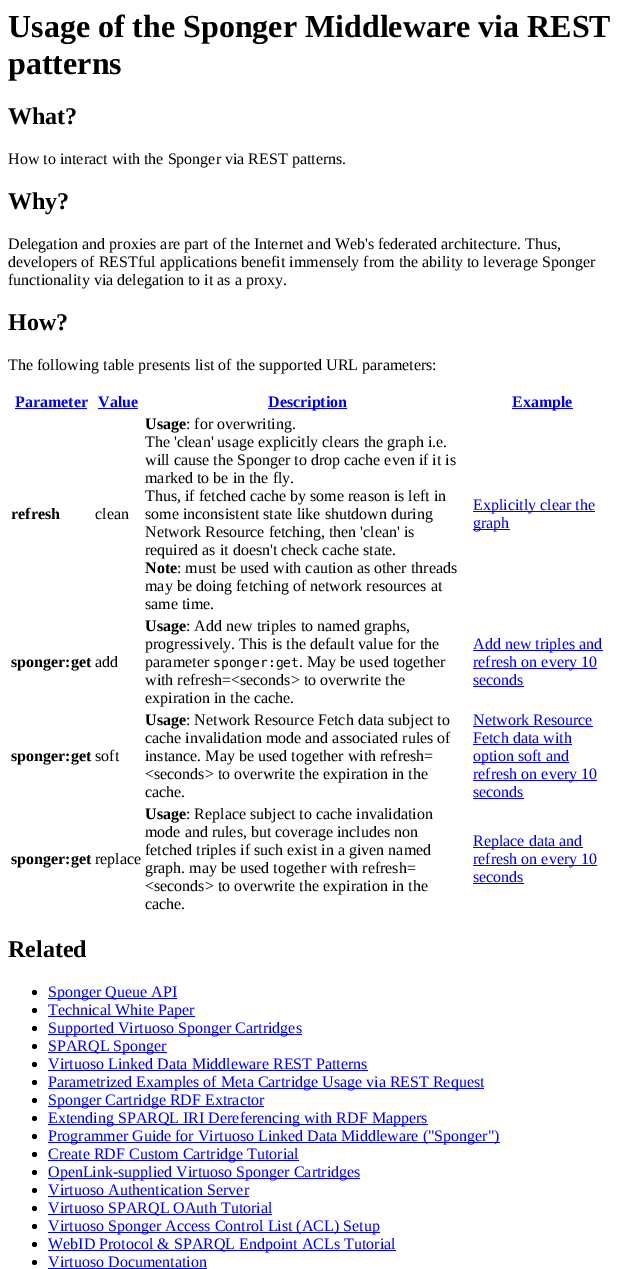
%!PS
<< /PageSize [623 1269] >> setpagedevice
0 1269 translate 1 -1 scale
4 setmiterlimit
1 setgray
0 0 623 1269 rectfill
/LiberationSerif-Bold [32 0 0 -32 0 0] selectfont
0 setgray
8 37 moveto (Usage of the Sponger Middleware via REST) show
8 74 moveto (patterns) show
/LiberationSerif-Bold [24 0 0 -24 0 0] selectfont
8 124 moveto (What?) show
/LiberationSerif-Regular [16 0 0 -16 0 0] selectfont
8 164 moveto (How to interact with the Sponger via REST patterns.) show
/LiberationSerif-Bold [24 0 0 -24 0 0] selectfont
8 209 moveto (Why?) show
/LiberationSerif-Regular [16 0 0 -16 0 0] selectfont
8 249 moveto (Delegation and proxies are part of the Internet and Web's federated architecture. Thus,) show
8 267 moveto (developers of RESTful applications benefit immensely from the ability to leverage Sponger) show
8 285 moveto (functionality via delegation to it as a proxy.) show
/LiberationSerif-Bold [24 0 0 -24 0 0] selectfont
8 330 moveto (How?) show
/LiberationSerif-Regular [16 0 0 -16 0 0] selectfont
8 370 moveto (The following table presents list of the supported URL parameters:) show
/LiberationSerif-Bold [16 0 0 -16 0 0] selectfont
0 0 0.933 setrgbcolor
15 407 moveto (Parameter) show
15 408 72 1 rectfill
98 407 moveto (Value) show
98 408 40 1 rectfill
268 408 79 1 rectfill
268 407 moveto (Description) show
512 408 61 1 rectfill
512 407 moveto (Example) show
0 setgray
11 519 moveto (refresh) show
/LiberationSerif-Regular [16 0 0 -16 0 0] selectfont
95 519 moveto (clean) show
/LiberationSerif-Bold [16 0 0 -16 0 0] selectfont
145 429 moveto (Usage) show
/LiberationSerif-Regular [16 0 0 -16 0 0] selectfont
186 429 moveto (: for overwriting.) show
145 447 moveto (The 'clean' usage explicitly clears the graph i.e.) show
145 465 moveto (will cause the Sponger to drop cache even if it is) show
145 483 moveto (marked to be in the fly.) show
145 501 moveto (Thus, if fetched cache by some reason is left in) show
145 519 moveto (some inconsistent state like shutdown during) show
145 537 moveto (Network Resource fetching, then 'clean' is) show
145 555 moveto (required as it doesn't check cache state.) show
/LiberationSerif-Bold [16 0 0 -16 0 0] selectfont
145 573 moveto (Note) show
/LiberationSerif-Regular [16 0 0 -16 0 0] selectfont
177 573 moveto (: must be used with caution as other threads) show
145 591 moveto (may be doing fetching of network resources at) show
145 609 moveto (same time.) show
0 0 0.933 setrgbcolor
473 511 122 1 rectfill
473 510 moveto (Explicitly clear the) show
473 529 37 1 rectfill
473 528 moveto (graph) show
/LiberationSerif-Bold [16 0 0 -16 0 0] selectfont
0 setgray
11 667 moveto (sponger:get) show
/LiberationSerif-Regular [16 0 0 -16 0 0] selectfont
95 667 moveto (add) show
/LiberationSerif-Bold [16 0 0 -16 0 0] selectfont
145 631 moveto (Usage) show
/LiberationSerif-Regular [16 0 0 -16 0 0] selectfont
186 631 moveto (: Add new triples to named graphs,) show
145 649 moveto (progressively. This is the default value for the) show
145 667 moveto (parameter) show
/DejaVuSansMono-Regular [13 0 0 -13 0 0] selectfont
213 667 moveto (sponger:get) show
/LiberationSerif-Regular [16 0 0 -16 0 0] selectfont
299 667 moveto (. May be used together) show
145 685 moveto (with refresh=<seconds> to overwrite the) show
145 703 moveto (expiration in the cache.) show
0 0 0.933 setrgbcolor
473 650 130 1 rectfill
473 649 moveto (Add new triples and) show
473 668 124 1 rectfill
473 667 moveto (refresh on every 10) show
473 685 moveto (seconds) show
473 686 51 1 rectfill
/LiberationSerif-Bold [16 0 0 -16 0 0] selectfont
0 setgray
11 761 moveto (sponger:get) show
/LiberationSerif-Regular [16 0 0 -16 0 0] selectfont
95 761 moveto (soft) show
/LiberationSerif-Bold [16 0 0 -16 0 0] selectfont
145 725 moveto (Usage) show
/LiberationSerif-Regular [16 0 0 -16 0 0] selectfont
186 725 moveto (: Network Resource Fetch data subject to) show
145 743 moveto (cache invalidation mode and associated rules of) show
145 761 moveto (instance. May be used together with refresh=) show
145 779 moveto (<seconds> to overwrite the expiration in the) show
145 797 moveto (cache.) show
0 0 0.933 setrgbcolor
473 725 moveto (Network Resource) show
473 726 120 1 rectfill
473 743 moveto (Fetch data with) show
473 744 99 1 rectfill
473 762 96 1 rectfill
473 761 moveto (option soft and) show
473 780 124 1 rectfill
473 779 moveto (refresh on every 10) show
473 797 moveto (seconds) show
473 798 51 1 rectfill
/LiberationSerif-Bold [16 0 0 -16 0 0] selectfont
0 setgray
11 864 moveto (sponger:get) show
/LiberationSerif-Regular [16 0 0 -16 0 0] selectfont
95 864 moveto (replace) show
/LiberationSerif-Bold [16 0 0 -16 0 0] selectfont
145 819 moveto (Usage) show
/LiberationSerif-Regular [16 0 0 -16 0 0] selectfont
186 819 moveto (: Replace subject to cache invalidation) show
145 837 moveto (mode and rules, but coverage includes non) show
145 855 moveto (fetched triples if such exist in a given named) show
145 873 moveto (graph. may be used together with refresh=) show
145 891 moveto (<seconds> to overwrite the expiration in the) show
145 909 moveto (cache.) show
0 0 0.933 setrgbcolor
473 847 110 1 rectfill
473 846 moveto (Replace data and) show
473 865 124 1 rectfill
473 864 moveto (refresh on every 10) show
473 882 moveto (seconds) show
473 883 51 1 rectfill
/LiberationSerif-Bold [24 0 0 -24 0 0] selectfont
0 setgray
8 957 moveto (Related) show
newpath 34.5 992.5 2.5 0 360 arc closepath fill
0 0 0.933 setrgbcolor
48 998 129 1 rectfill
/LiberationSerif-Regular [16 0 0 -16 0 0] selectfont
48 997 moveto (Sponger Queue API) show
0 setgray
newpath 34.5 1010.5 2.5 0 360 arc closepath fill
0 0 0.933 setrgbcolor
48 1016 147 1 rectfill
48 1015 moveto (Technical White Paper) show
0 setgray
newpath 34.5 1028.5 2.5 0 360 arc closepath fill
0 0 0.933 setrgbcolor
48 1034 254 1 rectfill
48 1033 moveto (Supported Virtuoso Sponger Cartridges) show
0 setgray
newpath 34.5 1046.5 2.5 0 360 arc closepath fill
0 0 0.933 setrgbcolor
48 1052 119 1 rectfill
48 1051 moveto (SPARQL Sponger) show
0 setgray
newpath 34.5 1064.5 2.5 0 360 arc closepath fill
0 0 0.933 setrgbcolor
48 1069 moveto (Virtuoso Linked Data Middleware REST Patterns) show
48 1070 320 1 rectfill
0 setgray
newpath 34.5 1082.5 2.5 0 360 arc closepath fill
0 0 0.933 setrgbcolor
48 1088 436 1 rectfill
48 1087 moveto (Parametrized Examples of Meta Cartridge Usage via REST Request) show
0 setgray
newpath 34.5 1100.5 2.5 0 360 arc closepath fill
0 0 0.933 setrgbcolor
48 1106 216 1 rectfill
48 1105 moveto (Sponger Cartridge RDF Extractor) show
0 setgray
newpath 34.5 1118.5 2.5 0 360 arc closepath fill
0 0 0.933 setrgbcolor
48 1124 380 1 rectfill
48 1123 moveto (Extending SPARQL IRI Dereferencing with RDF Mappers) show
0 setgray
newpath 34.5 1136.5 2.5 0 360 arc closepath fill
0 0 0.933 setrgbcolor
48 1142 452 1 rectfill
48 1141 moveto (Programmer Guide for Virtuoso Linked Data Middleware \("Sponger"\)) show
0 setgray
newpath 34.5 1154.5 2.5 0 360 arc closepath fill
0 0 0.933 setrgbcolor
48 1160 251 1 rectfill
48 1159 moveto (Create RDF Custom Cartridge Tutorial) show
0 setgray
newpath 34.5 1172.5 2.5 0 360 arc closepath fill
0 0 0.933 setrgbcolor
48 1178 312 1 rectfill
48 1177 moveto (OpenLink-supplied Virtuoso Sponger Cartridges) show
0 setgray
newpath 34.5 1190.5 2.5 0 360 arc closepath fill
0 0 0.933 setrgbcolor
48 1195 moveto (Virtuoso Authentication Server) show
48 1196 201 1 rectfill
0 setgray
newpath 34.5 1208.5 2.5 0 360 arc closepath fill
0 0 0.933 setrgbcolor
48 1214 224 1 rectfill
48 1213 moveto (Virtuoso SPARQL OAuth Tutorial) show
0 setgray
newpath 34.5 1226.5 2.5 0 360 arc closepath fill
0 0 0.933 setrgbcolor
48 1232 332 1 rectfill
48 1231 moveto (Virtuoso Sponger Access Control List \(ACL\) Setup) show
0 setgray
newpath 34.5 1244.5 2.5 0 360 arc closepath fill
0 0 0.933 setrgbcolor
48 1250 348 1 rectfill
48 1249 moveto (WebID Protocol & SPARQL Endpoint ACLs Tutorial) show
0 setgray
newpath 34.5 1262.5 2.5 0 360 arc closepath fill
0 0 0.933 setrgbcolor
48 1267 moveto (Virtuoso Documentation) show
48 1268 159 1 rectfill
showpage
